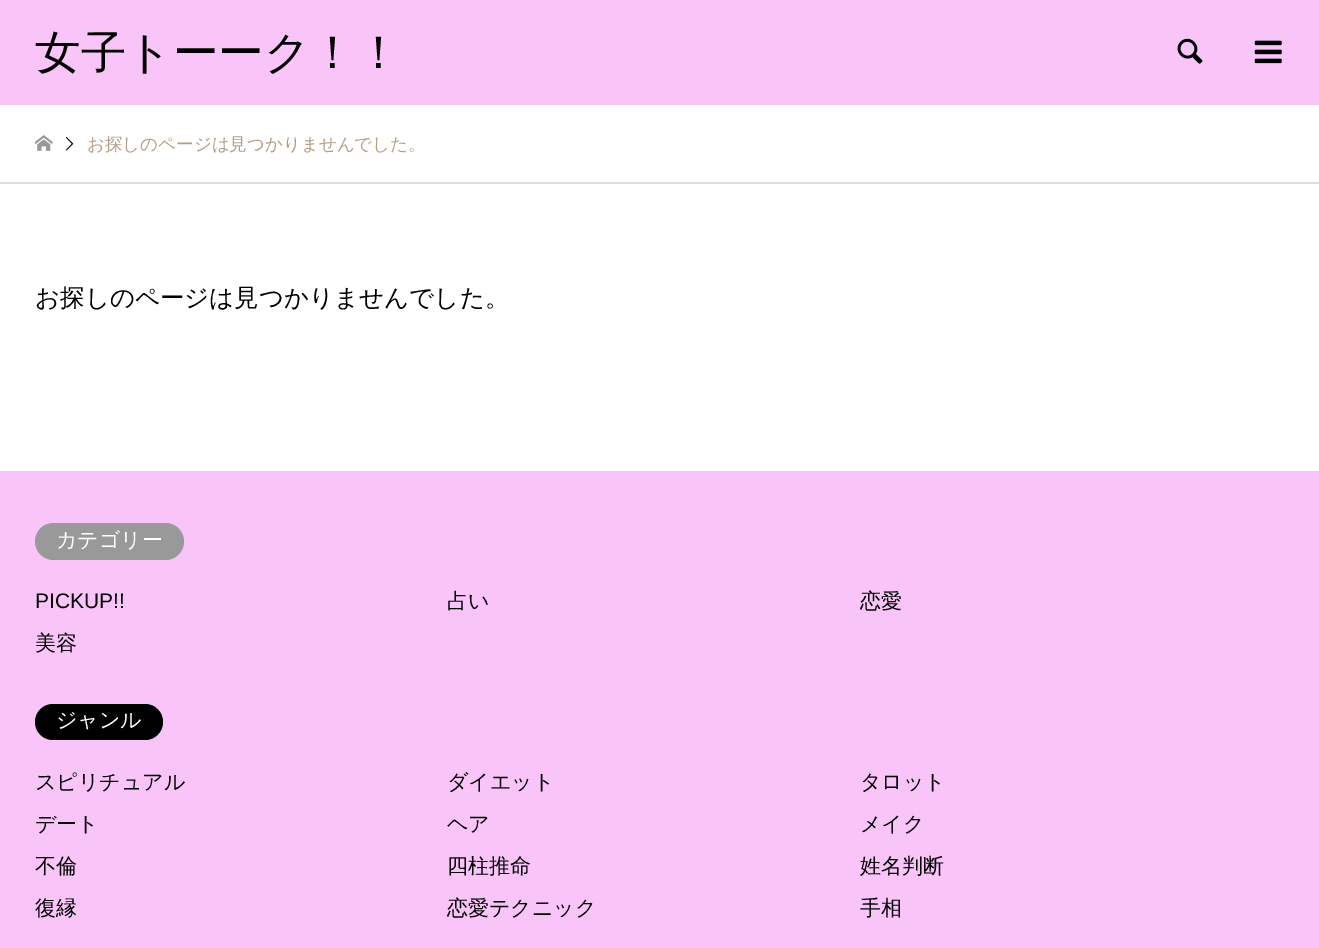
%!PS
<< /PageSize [1319 948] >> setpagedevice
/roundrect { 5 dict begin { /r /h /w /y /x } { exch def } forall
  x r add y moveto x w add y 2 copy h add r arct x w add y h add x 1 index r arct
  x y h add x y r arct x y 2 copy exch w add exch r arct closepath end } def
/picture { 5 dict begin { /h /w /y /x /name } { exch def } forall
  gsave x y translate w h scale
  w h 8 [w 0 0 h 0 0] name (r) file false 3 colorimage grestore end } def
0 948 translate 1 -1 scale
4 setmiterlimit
1 setgray
0 0 1319 948 rectfill
0.976 0.773 0.976 setrgbcolor
0 0 1319 105 rectfill
/WenQuanYiZenHei-Medium [45.5 0 0 -45.5 0 0] selectfont
0 setgray
35 68 moveto (女子トーーク！！) show
(img1.rgb) 1177 38 26 26 picture
(img2.rgb) 1254 40 28 24 picture
0.867 setgray
0 182 1319 2 rectfill
(img3.rgb) 35 135 18 16 picture
(img4.rgb) 65 137 9 14 picture
/WenQuanYiZenHei-Medium [17.5 0 0 -17.5 0 0] selectfont
0.714 0.62 0.518 setrgbcolor
87 150 moveto (お探しのページは見つかりませんでした。) show
/WenQuanYiZenHei-Medium [24.5 0 0 -24.5 0 0] selectfont
0 setgray
35 306 moveto (お探しのページは見つかりませんでした。) show
0.976 0.773 0.976 setrgbcolor
0 471 1319 477 rectfill
0.6 setgray
35 523 149 37 18.5 roundrect fill
/WenQuanYiZenHei-Medium [21 0 0 -21 0 0] selectfont
1 setgray
56 547 moveto (カテゴリー) show
/LiberationSans-Regular [21 0 0 -21 0 0] selectfont
0 setgray
35 608 moveto (PICKUP!!) show
/WenQuanYiZenHei-Medium [21 0 0 -21 0 0] selectfont
447 608 moveto (占い) show
860 608 moveto (恋愛) show
35 650 moveto (美容) show
35 704 128 36 18 roundrect fill
1 setgray
56 727 moveto (ジャンル) show
0 setgray
35 789 moveto (スピリチュアル) show
447 789 moveto (ダイエット) show
860 789 moveto (タロット) show
35 831 moveto (デート) show
447 831 moveto (ヘア) show
860 831 moveto (メイク) show
35 873 moveto (不倫) show
447 873 moveto (四柱推命) show
860 873 moveto (姓名判断) show
35 915 moveto (復縁) show
447 915 moveto (恋愛テクニック) show
860 915 moveto (手相) show
showpage
